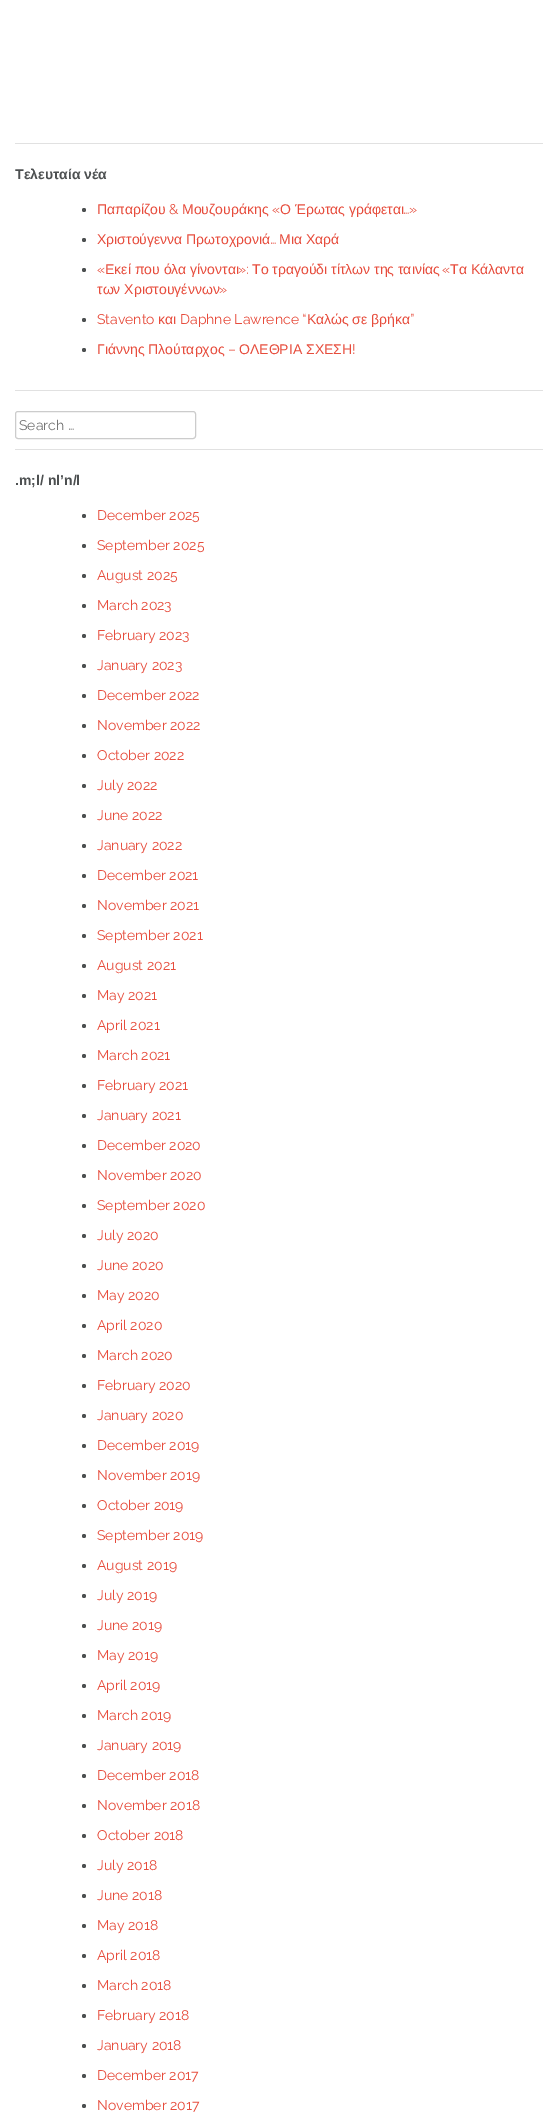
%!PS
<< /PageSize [558 2115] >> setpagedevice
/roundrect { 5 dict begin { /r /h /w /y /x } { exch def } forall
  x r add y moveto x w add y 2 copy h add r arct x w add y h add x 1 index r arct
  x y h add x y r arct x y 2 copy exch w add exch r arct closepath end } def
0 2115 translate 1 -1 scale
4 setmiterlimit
1 setgray
0 0 558 2115 rectfill
0.882 setgray
15 143 528 1 rectfill
15 390 528 1 rectfill
/LiberationSans-Bold [14 0 0 -14 0 0] selectfont
0.302 0.314 0.318 setrgbcolor
15 179 moveto (Τελευταία νέα) show
newpath 84 210 2 0 360 arc closepath fill
/LiberationSans-Regular [14 0 0 -14 0 0] selectfont
0.906 0.298 0.235 setrgbcolor
97 214 moveto (Παπαρίζου) show
/Raleway-Regular [14 0 0 -14 0 0] selectfont
169 214 moveto (&) show
/LiberationSans-Regular [14 0 0 -14 0 0] selectfont
182 214 moveto (Μουζουράκης) show
/Raleway-Regular [14 0 0 -14 0 0] selectfont
272 214 moveto («) show
/LiberationSans-Regular [14 0 0 -14 0 0] selectfont
280 214 moveto (Ο Έρωτας γράφεται) show
/Raleway-Regular [14 0 0 -14 0 0] selectfont
403 214 moveto (…») show
0.302 0.314 0.318 setrgbcolor
newpath 84 240 2 0 360 arc closepath fill
/LiberationSans-Regular [14 0 0 -14 0 0] selectfont
0.906 0.298 0.235 setrgbcolor
97 244 moveto (Χριστούγεννα Πρωτοχρονιά) show
279 244 moveto (Μια Χαρά) show
/Raleway-Regular [14 0 0 -14 0 0] selectfont
270 244 moveto (…) show
0.302 0.314 0.318 setrgbcolor
newpath 84 270 2 0 360 arc closepath fill
0.906 0.298 0.235 setrgbcolor
97 274 moveto («) show
/LiberationSans-Regular [14 0 0 -14 0 0] selectfont
105 274 moveto (Εκεί που όλα γίνονται) show
/Raleway-Regular [14 0 0 -14 0 0] selectfont
238 274 moveto (»:) show
/LiberationSans-Regular [14 0 0 -14 0 0] selectfont
252 274 moveto (Το τραγούδι τίτλων της ταινίας) show
/Raleway-Regular [14 0 0 -14 0 0] selectfont
442 274 moveto («) show
/LiberationSans-Regular [14 0 0 -14 0 0] selectfont
450 274 moveto (Τα Κάλαντα) show
97 294 moveto (των Χριστουγέννων) show
/Raleway-Regular [14 0 0 -14 0 0] selectfont
219 294 moveto (») show
0.302 0.314 0.318 setrgbcolor
newpath 84 320 2 0 360 arc closepath fill
0.906 0.298 0.235 setrgbcolor
97 324 moveto (Stavento) show
/LiberationSans-Regular [14 0 0 -14 0 0] selectfont
158 324 moveto (και) show
/Raleway-Regular [14 0 0 -14 0 0] selectfont
180 324 moveto (Daphne Lawrence “) show
/LiberationSans-Regular [14 0 0 -14 0 0] selectfont
307 324 moveto (Καλώς) show
352 324 moveto (σε) show
371 324 moveto (βρήκα) show
/Raleway-Regular [14 0 0 -14 0 0] selectfont
410 324 moveto (”) show
0.302 0.314 0.318 setrgbcolor
newpath 84 350 2 0 360 arc closepath fill
/LiberationSans-Regular [14 0 0 -14 0 0] selectfont
0.906 0.298 0.235 setrgbcolor
97 354 moveto (Γιάννης Πλούταρχος) show
/Raleway-Regular [14 0 0 -14 0 0] selectfont
228 354 moveto (–) show
/LiberationSans-Regular [14 0 0 -14 0 0] selectfont
239 354 moveto (ΟΛΕΘΡΙΑ ΣΧΕΣΗ) show
/Raleway-Regular [14 0 0 -14 0 0] selectfont
352 354 moveto (!) show
0.882 setgray
15 449 528 1 rectfill
0.8 setgray
15.5 411.5 180 27 2.5 roundrect stroke
0.459 setgray
19 430 moveto (Search …) show
/LiberationSans-Bold [14 0 0 -14 0 0] selectfont
0.302 0.314 0.318 setrgbcolor
15 485 moveto (.m;l/ nl’n/l) show
newpath 84 516 2 0 360 arc closepath fill
/Raleway-Regular [14 0 0 -14 0 0] selectfont
0.906 0.298 0.235 setrgbcolor
97 520 moveto (December 2025) show
0.302 0.314 0.318 setrgbcolor
newpath 84 546 2 0 360 arc closepath fill
0.906 0.298 0.235 setrgbcolor
97 550 moveto (September 2025) show
0.302 0.314 0.318 setrgbcolor
newpath 84 576 2 0 360 arc closepath fill
0.906 0.298 0.235 setrgbcolor
97 580 moveto (August 2025) show
0.302 0.314 0.318 setrgbcolor
newpath 84 606 2 0 360 arc closepath fill
0.906 0.298 0.235 setrgbcolor
97 610 moveto (March 2023) show
0.302 0.314 0.318 setrgbcolor
newpath 84 636 2 0 360 arc closepath fill
0.906 0.298 0.235 setrgbcolor
97 640 moveto (February 2023) show
0.302 0.314 0.318 setrgbcolor
newpath 84 666 2 0 360 arc closepath fill
0.906 0.298 0.235 setrgbcolor
97 670 moveto (January 2023) show
0.302 0.314 0.318 setrgbcolor
newpath 84 696 2 0 360 arc closepath fill
0.906 0.298 0.235 setrgbcolor
97 700 moveto (December 2022) show
0.302 0.314 0.318 setrgbcolor
newpath 84 726 2 0 360 arc closepath fill
0.906 0.298 0.235 setrgbcolor
97 730 moveto (November 2022) show
0.302 0.314 0.318 setrgbcolor
newpath 84 756 2 0 360 arc closepath fill
0.906 0.298 0.235 setrgbcolor
97 760 moveto (October 2022) show
0.302 0.314 0.318 setrgbcolor
newpath 84 786 2 0 360 arc closepath fill
0.906 0.298 0.235 setrgbcolor
97 790 moveto (July 2022) show
0.302 0.314 0.318 setrgbcolor
newpath 84 816 2 0 360 arc closepath fill
0.906 0.298 0.235 setrgbcolor
97 820 moveto (June 2022) show
0.302 0.314 0.318 setrgbcolor
newpath 84 846 2 0 360 arc closepath fill
0.906 0.298 0.235 setrgbcolor
97 850 moveto (January 2022) show
0.302 0.314 0.318 setrgbcolor
newpath 84 876 2 0 360 arc closepath fill
0.906 0.298 0.235 setrgbcolor
97 880 moveto (December 2021) show
0.302 0.314 0.318 setrgbcolor
newpath 84 906 2 0 360 arc closepath fill
0.906 0.298 0.235 setrgbcolor
97 910 moveto (November 2021) show
0.302 0.314 0.318 setrgbcolor
newpath 84 936 2 0 360 arc closepath fill
0.906 0.298 0.235 setrgbcolor
97 940 moveto (September 2021) show
0.302 0.314 0.318 setrgbcolor
newpath 84 966 2 0 360 arc closepath fill
0.906 0.298 0.235 setrgbcolor
97 970 moveto (August 2021) show
0.302 0.314 0.318 setrgbcolor
newpath 84 996 2 0 360 arc closepath fill
0.906 0.298 0.235 setrgbcolor
97 1000 moveto (May 2021) show
0.302 0.314 0.318 setrgbcolor
newpath 84 1026 2 0 360 arc closepath fill
0.906 0.298 0.235 setrgbcolor
97 1030 moveto (April 2021) show
0.302 0.314 0.318 setrgbcolor
newpath 84 1056 2 0 360 arc closepath fill
0.906 0.298 0.235 setrgbcolor
97 1060 moveto (March 2021) show
0.302 0.314 0.318 setrgbcolor
newpath 84 1086 2 0 360 arc closepath fill
0.906 0.298 0.235 setrgbcolor
97 1090 moveto (February 2021) show
0.302 0.314 0.318 setrgbcolor
newpath 84 1116 2 0 360 arc closepath fill
0.906 0.298 0.235 setrgbcolor
97 1120 moveto (January 2021) show
0.302 0.314 0.318 setrgbcolor
newpath 84 1146 2 0 360 arc closepath fill
0.906 0.298 0.235 setrgbcolor
97 1150 moveto (December 2020) show
0.302 0.314 0.318 setrgbcolor
newpath 84 1176 2 0 360 arc closepath fill
0.906 0.298 0.235 setrgbcolor
97 1180 moveto (November 2020) show
0.302 0.314 0.318 setrgbcolor
newpath 84 1206 2 0 360 arc closepath fill
0.906 0.298 0.235 setrgbcolor
97 1210 moveto (September 2020) show
0.302 0.314 0.318 setrgbcolor
newpath 84 1236 2 0 360 arc closepath fill
0.906 0.298 0.235 setrgbcolor
97 1240 moveto (July 2020) show
0.302 0.314 0.318 setrgbcolor
newpath 84 1266 2 0 360 arc closepath fill
0.906 0.298 0.235 setrgbcolor
97 1270 moveto (June 2020) show
0.302 0.314 0.318 setrgbcolor
newpath 84 1296 2 0 360 arc closepath fill
0.906 0.298 0.235 setrgbcolor
97 1300 moveto (May 2020) show
0.302 0.314 0.318 setrgbcolor
newpath 84 1326 2 0 360 arc closepath fill
0.906 0.298 0.235 setrgbcolor
97 1330 moveto (April 2020) show
0.302 0.314 0.318 setrgbcolor
newpath 84 1356 2 0 360 arc closepath fill
0.906 0.298 0.235 setrgbcolor
97 1360 moveto (March 2020) show
0.302 0.314 0.318 setrgbcolor
newpath 84 1386 2 0 360 arc closepath fill
0.906 0.298 0.235 setrgbcolor
97 1390 moveto (February 2020) show
0.302 0.314 0.318 setrgbcolor
newpath 84 1416 2 0 360 arc closepath fill
0.906 0.298 0.235 setrgbcolor
97 1420 moveto (January 2020) show
0.302 0.314 0.318 setrgbcolor
newpath 84 1446 2 0 360 arc closepath fill
0.906 0.298 0.235 setrgbcolor
97 1450 moveto (December 2019) show
0.302 0.314 0.318 setrgbcolor
newpath 84 1476 2 0 360 arc closepath fill
0.906 0.298 0.235 setrgbcolor
97 1480 moveto (November 2019) show
0.302 0.314 0.318 setrgbcolor
newpath 84 1506 2 0 360 arc closepath fill
0.906 0.298 0.235 setrgbcolor
97 1510 moveto (October 2019) show
0.302 0.314 0.318 setrgbcolor
newpath 84 1536 2 0 360 arc closepath fill
0.906 0.298 0.235 setrgbcolor
97 1540 moveto (September 2019) show
0.302 0.314 0.318 setrgbcolor
newpath 84 1566 2 0 360 arc closepath fill
0.906 0.298 0.235 setrgbcolor
97 1570 moveto (August 2019) show
0.302 0.314 0.318 setrgbcolor
newpath 84 1596 2 0 360 arc closepath fill
0.906 0.298 0.235 setrgbcolor
97 1600 moveto (July 2019) show
0.302 0.314 0.318 setrgbcolor
newpath 84 1626 2 0 360 arc closepath fill
0.906 0.298 0.235 setrgbcolor
97 1630 moveto (June 2019) show
0.302 0.314 0.318 setrgbcolor
newpath 84 1656 2 0 360 arc closepath fill
0.906 0.298 0.235 setrgbcolor
97 1660 moveto (May 2019) show
0.302 0.314 0.318 setrgbcolor
newpath 84 1686 2 0 360 arc closepath fill
0.906 0.298 0.235 setrgbcolor
97 1690 moveto (April 2019) show
0.302 0.314 0.318 setrgbcolor
newpath 84 1716 2 0 360 arc closepath fill
0.906 0.298 0.235 setrgbcolor
97 1720 moveto (March 2019) show
0.302 0.314 0.318 setrgbcolor
newpath 84 1746 2 0 360 arc closepath fill
0.906 0.298 0.235 setrgbcolor
97 1750 moveto (January 2019) show
0.302 0.314 0.318 setrgbcolor
newpath 84 1776 2 0 360 arc closepath fill
0.906 0.298 0.235 setrgbcolor
97 1780 moveto (December 2018) show
0.302 0.314 0.318 setrgbcolor
newpath 84 1806 2 0 360 arc closepath fill
0.906 0.298 0.235 setrgbcolor
97 1810 moveto (November 2018) show
0.302 0.314 0.318 setrgbcolor
newpath 84 1836 2 0 360 arc closepath fill
0.906 0.298 0.235 setrgbcolor
97 1840 moveto (October 2018) show
0.302 0.314 0.318 setrgbcolor
newpath 84 1866 2 0 360 arc closepath fill
0.906 0.298 0.235 setrgbcolor
97 1870 moveto (July 2018) show
0.302 0.314 0.318 setrgbcolor
newpath 84 1896 2 0 360 arc closepath fill
0.906 0.298 0.235 setrgbcolor
97 1900 moveto (June 2018) show
0.302 0.314 0.318 setrgbcolor
newpath 84 1926 2 0 360 arc closepath fill
0.906 0.298 0.235 setrgbcolor
97 1930 moveto (May 2018) show
0.302 0.314 0.318 setrgbcolor
newpath 84 1956 2 0 360 arc closepath fill
0.906 0.298 0.235 setrgbcolor
97 1960 moveto (April 2018) show
0.302 0.314 0.318 setrgbcolor
newpath 84 1986 2 0 360 arc closepath fill
0.906 0.298 0.235 setrgbcolor
97 1990 moveto (March 2018) show
0.302 0.314 0.318 setrgbcolor
newpath 84 2016 2 0 360 arc closepath fill
0.906 0.298 0.235 setrgbcolor
97 2020 moveto (February 2018) show
0.302 0.314 0.318 setrgbcolor
newpath 84 2046 2 0 360 arc closepath fill
0.906 0.298 0.235 setrgbcolor
97 2050 moveto (January 2018) show
0.302 0.314 0.318 setrgbcolor
newpath 84 2076 2 0 360 arc closepath fill
0.906 0.298 0.235 setrgbcolor
97 2080 moveto (December 2017) show
0.302 0.314 0.318 setrgbcolor
newpath 84 2106 2 0 360 arc closepath fill
0.906 0.298 0.235 setrgbcolor
97 2110 moveto (November 2017) show
showpage
